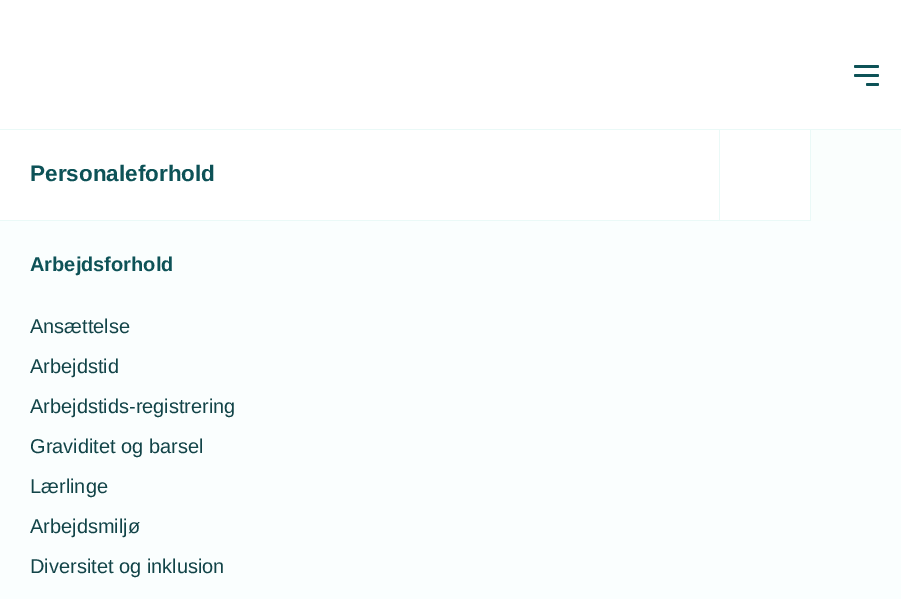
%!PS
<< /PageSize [901 599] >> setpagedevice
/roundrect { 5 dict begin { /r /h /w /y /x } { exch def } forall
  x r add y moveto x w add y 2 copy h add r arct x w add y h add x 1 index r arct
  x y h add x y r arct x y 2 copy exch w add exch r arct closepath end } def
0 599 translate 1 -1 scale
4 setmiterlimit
1 setgray
0 0 901 599 rectfill
0.918 0.976 0.969 setrgbcolor
0 129 901 1 rectfill
0.051 0.322 0.341 setrgbcolor
866 83 13 3 1.5 roundrect fill
854 65 25 3 1.5 roundrect fill
854 74 25 3 1.5 roundrect fill
0.918 0.976 0.969 setrgbcolor
0 220 810 1 rectfill
/LiberationSans-Bold [22.5 0 0 -22.5 0 0] selectfont
0.051 0.322 0.341 setrgbcolor
30 181 moveto (Personaleforhold) show
0.918 0.976 0.969 setrgbcolor
719 130 1 91 rectfill
0.98 0.996 0.992 setrgbcolor
811 130 90 91 rectfill
0.918 0.976 0.969 setrgbcolor
810 130 1 91 rectfill
0.98 0.996 0.996 setrgbcolor
0 221 901 378 rectfill
/LiberationSans-Bold [20 0 0 -20 0 0] selectfont
0.051 0.322 0.341 setrgbcolor
30 271 moveto (Arbejdsforhold) show
/LiberationSans-Regular [20 0 0 -20 0 0] selectfont
0.071 0.267 0.282 setrgbcolor
30 333 moveto (Ansættelse) show
30 373 moveto (Arbejdstid) show
30 413 moveto (Arbejdstids-registrering) show
30 453 moveto (Graviditet og barsel) show
30 493 moveto (Lærlinge) show
30 533 moveto (Arbejdsmiljø) show
30 573 moveto (Diversitet og inklusion) show
showpage
